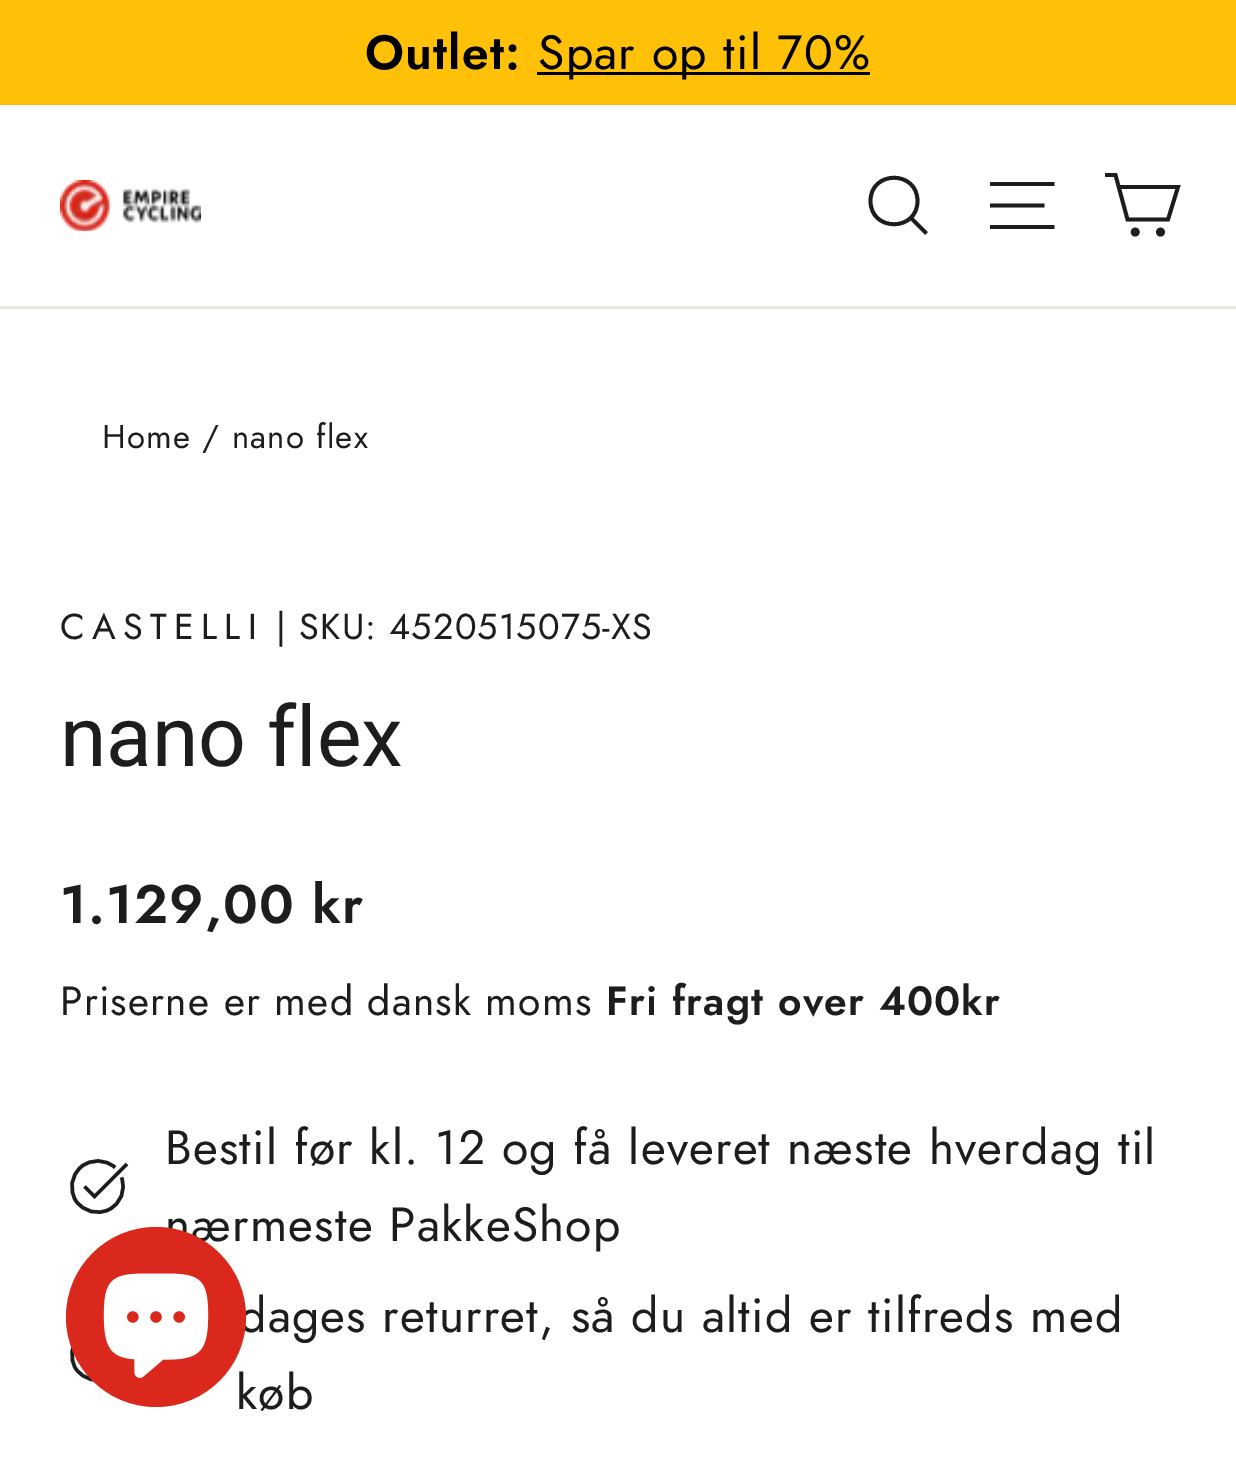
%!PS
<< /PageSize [1236 1468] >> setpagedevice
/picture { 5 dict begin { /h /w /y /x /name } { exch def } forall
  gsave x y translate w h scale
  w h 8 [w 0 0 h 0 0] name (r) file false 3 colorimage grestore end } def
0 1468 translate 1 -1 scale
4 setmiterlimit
1 setgray
0 0 1236 1468 rectfill
1 0.757 0.027 setrgbcolor
0 0 1236 105 rectfill
/Jost-SemiBold [48 0 0 -48 0 0] selectfont
0 setgray
365 69 moveto 1.2 0 (Outlet:) ashow
537 72 333 3 rectfill
/Jost-Regular [48 0 0 -48 0 0] selectfont
538 69 moveto 1.2 0 (Spar op til 70%) ashow
0.91 0.91 0.882 setrgbcolor
0 306 1236 3 rectfill
(img1.rgb) 60 180 141 51 picture
0.11 0.114 0.114 setrgbcolor
3.8 setlinewidth
newpath 917.5 201 moveto 917.5 232 870.5 232 870.5 201 curveto 870.5 170 917.5 170 917.5 201 curveto closepath 926.5 233.5 moveto 911 218 lineto stroke
newpath 990 184 moveto 1054.5 184 lineto 990 205.5 moveto 1044.5 205.5 lineto 990 227 moveto 1054.5 227 lineto stroke
newpath 1118.5 187 moveto 1178 187 lineto 1168 219.5 lineto 1127.5 219.5 lineto 1115.5 175 lineto 1105 175 lineto stroke
newpath 1135.2 232.1 2.5 0 360 arc closepath gsave fill grestore
stroke
newpath 1160.5 232.1 2.5 0 360 arc closepath gsave fill grestore
stroke
/Jost-Regular [33 0 0 -33 0 0] selectfont
102 448 moveto 1.2 0 (Home / nano flex) ashow
/Jost-Regular [36 0 0 -36 0 0] selectfont
60 639 moveto 7.25 0 (CASTELLI) ashow
276 639 moveto 1.2 0 (| SKU: 4520515075-XS) ashow
/Roboto-Regular [84 0 0 -84 0 0] selectfont
60 766 moveto (nano flex) show
/Jost-SemiBold [54 0 0 -54 0 0] selectfont
60 923 moveto 1.2 0 (1.129,00 kr) ashow
/Jost-Regular [40.75 0 0 -40.75 0 0] selectfont
60 1015 moveto 1.2 0 (Priserne er med dansk moms) ashow
/Jost-SemiBold [40.75 0 0 -40.75 0 0] selectfont
606 1015 moveto 1.2 0 (Fri fragt over 400kr) ashow
3.5 setlinewidth
newpath 121.5 1177.5 moveto 126 1190 121 1203.5 109 1209.5 curveto 97.5 1215.5 83.5 1211.5 76 1201 curveto 69 1190 71 1175.5 81 1167 curveto 91 1158.5 105.5 1159 115 1167.5 curveto 84.5 1186.5 moveto 94.5 1196.5 lineto 127 1164 lineto stroke
/Jost-Regular [48 0 0 -48 0 0] selectfont
165 1164 moveto 1.2 0 (Bestil før kl. 12 og få leveret næste hverdag til) ashow
165 1241 moveto 1.2 0 (nærmeste PakkeShop) ashow
newpath 121.5 1345.5 moveto 126 1358 121 1371.5 109 1377.5 curveto 97.5 1383.5 83.5 1379.5 76 1369 curveto 69 1358 71 1343.5 81 1335 curveto 91 1326.5 105.5 1327 115 1335.5 curveto 84.5 1354.5 moveto 94.5 1364.5 lineto 127 1332 lineto stroke
239 1332 moveto 1.2 0 (dages returret, så du altid er tilfreds med) ashow
236 1409 moveto 1.2 0 (køb) ashow
0.855 0.161 0.11 setrgbcolor
newpath 156 1317 90 0 360 arc closepath fill
(img2.rgb) 103 1273 106 105 picture
showpage
